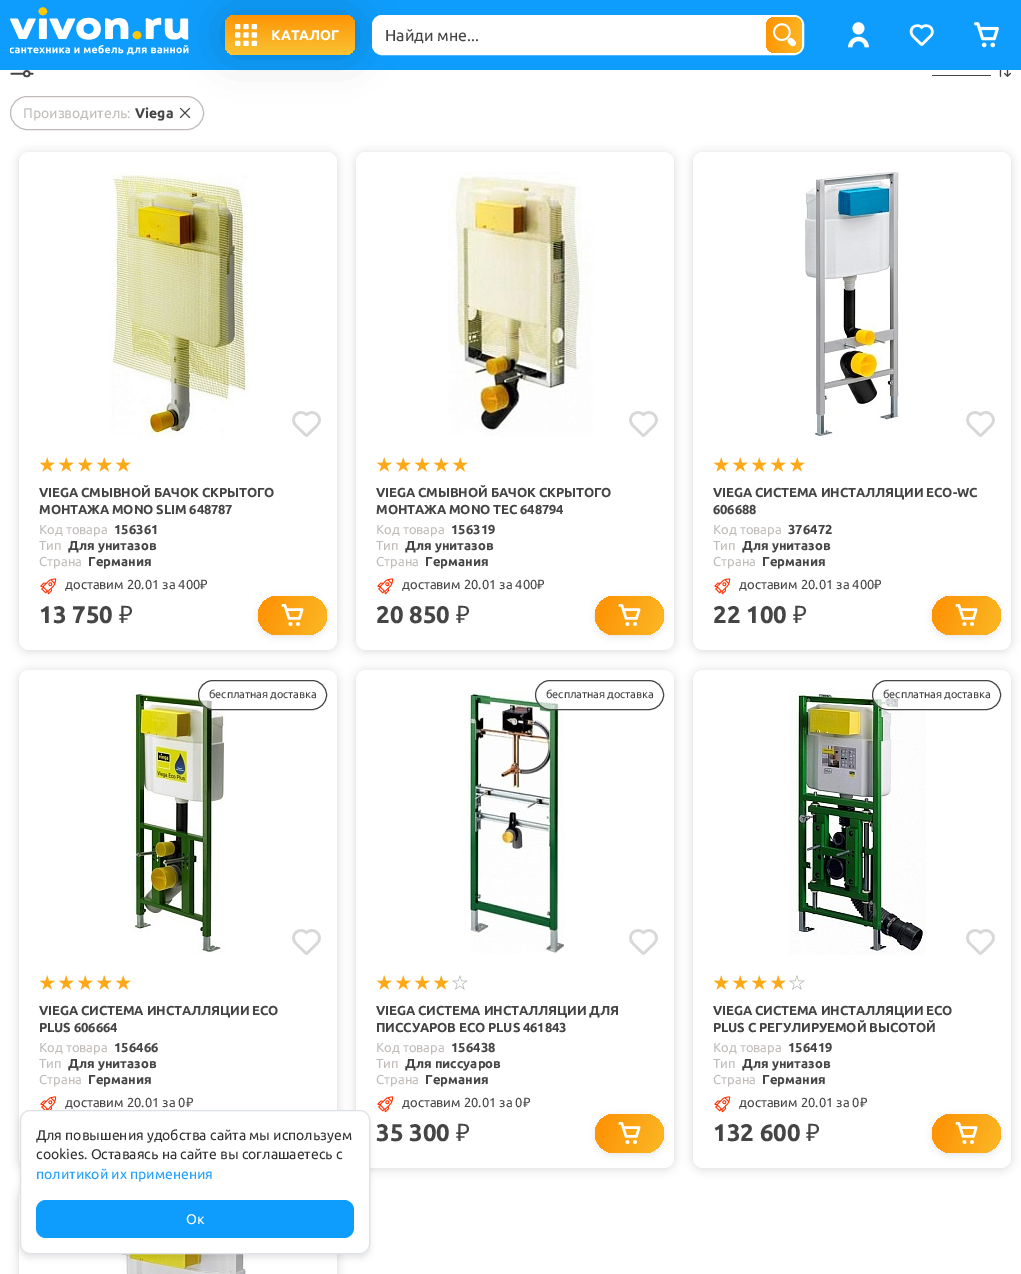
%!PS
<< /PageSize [1021 1274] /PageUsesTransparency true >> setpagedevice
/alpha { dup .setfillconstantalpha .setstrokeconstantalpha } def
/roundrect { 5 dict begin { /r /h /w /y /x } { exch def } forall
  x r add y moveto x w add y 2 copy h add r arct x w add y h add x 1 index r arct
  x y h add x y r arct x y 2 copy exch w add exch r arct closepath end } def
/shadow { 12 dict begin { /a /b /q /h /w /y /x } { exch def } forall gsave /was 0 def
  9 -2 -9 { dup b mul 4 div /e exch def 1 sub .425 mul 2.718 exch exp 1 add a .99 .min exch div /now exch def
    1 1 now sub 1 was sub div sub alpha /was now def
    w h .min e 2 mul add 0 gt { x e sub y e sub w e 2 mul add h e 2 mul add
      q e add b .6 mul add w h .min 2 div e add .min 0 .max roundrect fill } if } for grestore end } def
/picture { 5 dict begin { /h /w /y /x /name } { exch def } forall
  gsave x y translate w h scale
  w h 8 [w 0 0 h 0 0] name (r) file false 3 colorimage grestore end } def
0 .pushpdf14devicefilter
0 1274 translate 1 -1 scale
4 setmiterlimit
1 setgray
0 0 1021 1274 rectfill
0.055 0.616 0.992 setrgbcolor
0 0 1021 70 rectfill
(img1.rgb) 10 7 179 48 picture
0.753 0.733 0.722 setrgbcolor
10.5 96.5 193 33 16.5 roundrect stroke
(img9.rgb) 179 107 12 11 picture
0 0.004 0.004 setrgbcolor
225 15 130 40 10 21.5 0.18 shadow
gsave 225 15 130 40 10 roundrect clip newpath
<< /ShadingType 2 /ColorSpace /DeviceRGB /Coords [290 15 290 55] /Extend [true true] /Function << /FunctionType 2 /Domain [0 1] /C0 [0.996 0.584 0.024] /C1 [0.98 0.765 0.2] /N 1 >> >> shfill grestore
(img2.rgb) 235 24 22 22 picture
/Ubuntu-Bold [14 0 0 -14 0 0] selectfont
1 setgray
271 40 moveto (КАТАЛОГ) show
372.5 15.5 431 39 9.5 roundrect gsave fill grestore
stroke
/Ubuntu-Regular [16 0 0 -16 0 0] selectfont
0.271 setgray
385 41 moveto (Найди мне...) show
gsave 766 17 36 36 9 roundrect clip newpath
<< /ShadingType 2 /ColorSpace /DeviceRGB /Coords [762 31 805 39] /Extend [true true] /Function << /FunctionType 3 /Domain [0 1] /Functions [<< /FunctionType 2 /Domain [0 1] /C0 [1 0.569 0.004] /C1 [0.984 0.702 0.129] /N 1 >> << /FunctionType 2 /Domain [0 1] /C0 [0.984 0.702 0.129] /C1 [0.984 0.702 0.129] /N 1 >>] /Bounds [0.85] /Encode [0 1 0 1] >> >> shfill grestore
(img3.rgb) 773 23 23 24 picture
(img4.rgb) 848 22 21 26 picture
(img5.rgb) 909 24 25 22 picture
(img6.rgb) 974 22 25 26 picture
(img7.rgb) 10 70 24 8 picture
932 75 59 1 rectfill
(img8.rgb) 999 70 12 7 picture
/Ubuntu-Regular [14 0 0 -14 0 0] selectfont
0.753 0.733 0.722 setrgbcolor
23 118 moveto (Производитель:) show
/Ubuntu-Bold [14 0 0 -14 0 0] selectfont
0.271 setgray
135 118 moveto (Viega) show
0 setgray
19 153 318 498 10 5 0.15 shadow
1 setgray
19 152 318 498 10 roundrect fill
(img10.rgb) 108 172 143 265 picture
(img11.rgb) 39 457 16 15 picture
(img11.rgb) 58 457 16 15 picture
(img11.rgb) 77 457 16 15 picture
(img11.rgb) 96 457 16 15 picture
(img11.rgb) 115 457 16 15 picture
/Ubuntu-Bold [13 0 0 -13 0 0] selectfont
0.271 setgray
39 497 moveto -0.15 0 (VIEGA СМЫВНОЙ БАЧОК СКРЫТОГО) ashow
39 514 moveto -0.15 0 (МОНТАЖА MONO SLIM 648787) ashow
/Ubuntu-Regular [13 0 0 -13 0 0] selectfont
0.753 0.733 0.722 setrgbcolor
39 534 moveto (Код товара) show
/Ubuntu-Bold [13 0 0 -13 0 0] selectfont
0.271 setgray
114 534 moveto (156361) show
/Ubuntu-Regular [13 0 0 -13 0 0] selectfont
0.753 0.733 0.722 setrgbcolor
39 550 moveto (Тип) show
/Ubuntu-Bold [13 0 0 -13 0 0] selectfont
0.271 setgray
68 550 moveto (Для унитазов) show
/Ubuntu-Regular [13 0 0 -13 0 0] selectfont
0.753 0.733 0.722 setrgbcolor
39 566 moveto (Страна) show
/Ubuntu-Bold [13 0 0 -13 0 0] selectfont
0.271 setgray
88 566 moveto (Германия) show
(img12.rgb) 40 578 17 17 picture
/Ubuntu-Regular [13 0 0 -13 0 0] selectfont
65 589 moveto (доставим 20.01 за 400) show
/NotoSans-Regular [13 0 0 -13 0 0] selectfont
200 589 moveto (₽) show
/Ubuntu-Bold [24 0 0 -24 0 0] selectfont
39 623 moveto (13 750) show
/NotoSans-Regular [24 0 0 -24 0 0] selectfont
119 623 moveto (₽) show
(img13.rgb) 292 411 29 26 picture
0 setgray
258 598 69 39 19.5 3.5 0.1 shadow
gsave 258 596 69 39 19.5 roundrect clip newpath
<< /ShadingType 2 /ColorSpace /DeviceRGB /Coords [256 603 329 628] /Extend [true true] /Function << /FunctionType 3 /Domain [0 1] /Functions [<< /FunctionType 2 /Domain [0 1] /C0 [0.996 0.584 0.024] /C1 [0.996 0.584 0.024] /N 1 >> << /FunctionType 2 /Domain [0 1] /C0 [0.996 0.584 0.024] /C1 [0.984 0.702 0.129] /N 1 >> << /FunctionType 2 /Domain [0 1] /C0 [0.984 0.702 0.129] /C1 [0.984 0.702 0.129] /N 1 >>] /Bounds [0.13 0.86] /Encode [0 1 0 1 0 1] >> >> shfill grestore
(img14.rgb) 281 604 23 22 picture
356 153 318 498 10 5 0.15 shadow
1 setgray
356 152 318 498 10 roundrect fill
(img15.rgb) 448 172 145 264 picture
(img11.rgb) 376 457 16 15 picture
(img11.rgb) 395 457 16 15 picture
(img11.rgb) 414 457 16 15 picture
(img11.rgb) 433 457 16 15 picture
(img11.rgb) 452 457 16 15 picture
/Ubuntu-Bold [13 0 0 -13 0 0] selectfont
0.271 setgray
376 497 moveto -0.15 0 (VIEGA СМЫВНОЙ БАЧОК СКРЫТОГО) ashow
376 514 moveto -0.15 0 (МОНТАЖА MONO TEC 648794) ashow
/Ubuntu-Regular [13 0 0 -13 0 0] selectfont
0.753 0.733 0.722 setrgbcolor
376 534 moveto (Код товара) show
/Ubuntu-Bold [13 0 0 -13 0 0] selectfont
0.271 setgray
451 534 moveto (156319) show
/Ubuntu-Regular [13 0 0 -13 0 0] selectfont
0.753 0.733 0.722 setrgbcolor
376 550 moveto (Тип) show
/Ubuntu-Bold [13 0 0 -13 0 0] selectfont
0.271 setgray
405 550 moveto (Для унитазов) show
/Ubuntu-Regular [13 0 0 -13 0 0] selectfont
0.753 0.733 0.722 setrgbcolor
376 566 moveto (Страна) show
/Ubuntu-Bold [13 0 0 -13 0 0] selectfont
0.271 setgray
425 566 moveto (Германия) show
(img12.rgb) 377 578 17 17 picture
/Ubuntu-Regular [13 0 0 -13 0 0] selectfont
402 589 moveto (доставим 20.01 за 400) show
/NotoSans-Regular [13 0 0 -13 0 0] selectfont
537 589 moveto (₽) show
/Ubuntu-Bold [24 0 0 -24 0 0] selectfont
376 623 moveto (20 850) show
/NotoSans-Regular [24 0 0 -24 0 0] selectfont
456 623 moveto (₽) show
(img13.rgb) 629 411 29 26 picture
0 setgray
595 598 69 39 19.5 3.5 0.1 shadow
gsave 595 596 69 39 19.5 roundrect clip newpath
<< /ShadingType 2 /ColorSpace /DeviceRGB /Coords [593 603 666 628] /Extend [true true] /Function << /FunctionType 3 /Domain [0 1] /Functions [<< /FunctionType 2 /Domain [0 1] /C0 [0.996 0.584 0.024] /C1 [0.996 0.584 0.024] /N 1 >> << /FunctionType 2 /Domain [0 1] /C0 [0.996 0.584 0.024] /C1 [0.984 0.702 0.129] /N 1 >> << /FunctionType 2 /Domain [0 1] /C0 [0.984 0.702 0.129] /C1 [0.984 0.702 0.129] /N 1 >>] /Bounds [0.13 0.86] /Encode [0 1 0 1 0 1] >> >> shfill grestore
(img14.rgb) 618 604 23 22 picture
693 153 318 498 10 5 0.15 shadow
1 setgray
693 152 318 498 10 roundrect fill
(img16.rgb) 803 172 98 265 picture
(img11.rgb) 713 457 16 15 picture
(img11.rgb) 732 457 16 15 picture
(img11.rgb) 751 457 16 15 picture
(img11.rgb) 770 457 16 15 picture
(img11.rgb) 789 457 16 15 picture
/Ubuntu-Bold [13 0 0 -13 0 0] selectfont
0.271 setgray
713 497 moveto -0.15 0 (VIEGA СИСТЕМА ИНСТАЛЛЯЦИИ ECO-WC) ashow
713 514 moveto -0.15 0 (606688) ashow
/Ubuntu-Regular [13 0 0 -13 0 0] selectfont
0.753 0.733 0.722 setrgbcolor
713 534 moveto (Код товара) show
/Ubuntu-Bold [13 0 0 -13 0 0] selectfont
0.271 setgray
788 534 moveto (376472) show
/Ubuntu-Regular [13 0 0 -13 0 0] selectfont
0.753 0.733 0.722 setrgbcolor
713 550 moveto (Тип) show
/Ubuntu-Bold [13 0 0 -13 0 0] selectfont
0.271 setgray
742 550 moveto (Для унитазов) show
/Ubuntu-Regular [13 0 0 -13 0 0] selectfont
0.753 0.733 0.722 setrgbcolor
713 566 moveto (Страна) show
/Ubuntu-Bold [13 0 0 -13 0 0] selectfont
0.271 setgray
762 566 moveto (Германия) show
(img12.rgb) 714 578 17 17 picture
/Ubuntu-Regular [13 0 0 -13 0 0] selectfont
739 589 moveto (доставим 20.01 за 400) show
/NotoSans-Regular [13 0 0 -13 0 0] selectfont
874 589 moveto (₽) show
/Ubuntu-Bold [24 0 0 -24 0 0] selectfont
713 623 moveto (22 100) show
/NotoSans-Regular [24 0 0 -24 0 0] selectfont
793 623 moveto (₽) show
(img13.rgb) 966 411 29 26 picture
0 setgray
932 598 69 39 19.5 3.5 0.1 shadow
gsave 932 596 69 39 19.5 roundrect clip newpath
<< /ShadingType 2 /ColorSpace /DeviceRGB /Coords [930 603 1003 628] /Extend [true true] /Function << /FunctionType 3 /Domain [0 1] /Functions [<< /FunctionType 2 /Domain [0 1] /C0 [0.996 0.584 0.024] /C1 [0.996 0.584 0.024] /N 1 >> << /FunctionType 2 /Domain [0 1] /C0 [0.996 0.584 0.024] /C1 [0.984 0.702 0.129] /N 1 >> << /FunctionType 2 /Domain [0 1] /C0 [0.984 0.702 0.129] /C1 [0.984 0.702 0.129] /N 1 >>] /Bounds [0.13 0.86] /Encode [0 1 0 1 0 1] >> >> shfill grestore
(img14.rgb) 955 604 23 22 picture
19 671 318 498 10 5 0.15 shadow
1 setgray
19 670 318 498 10 roundrect fill
(img17.rgb) 131 690 95 264 picture
0.7 alpha
198.5 680.5 128 29 14.5 roundrect fill
1 alpha
0.271 setgray
198.5 680.5 128 29 14.5 roundrect stroke
/Ubuntu-Regular [11 0 0 -11 0 0] selectfont
209 698 moveto -0.1 0 (бесплатная доставка) ashow
(img13.rgb) 292 929 29 26 picture
(img11.rgb) 39 975 16 15 picture
(img11.rgb) 58 975 16 15 picture
(img11.rgb) 77 975 16 15 picture
(img11.rgb) 96 975 16 15 picture
(img11.rgb) 115 975 16 15 picture
/Ubuntu-Bold [13 0 0 -13 0 0] selectfont
39 1015 moveto -0.15 0 (VIEGA СИСТЕМА ИНСТАЛЛЯЦИИ ECO) ashow
39 1032 moveto -0.15 0 (PLUS 606664) ashow
/Ubuntu-Regular [13 0 0 -13 0 0] selectfont
0.753 0.733 0.722 setrgbcolor
39 1052 moveto (Код товара) show
/Ubuntu-Bold [13 0 0 -13 0 0] selectfont
0.271 setgray
114 1052 moveto (156466) show
/Ubuntu-Regular [13 0 0 -13 0 0] selectfont
0.753 0.733 0.722 setrgbcolor
39 1068 moveto (Тип) show
/Ubuntu-Bold [13 0 0 -13 0 0] selectfont
0.271 setgray
68 1068 moveto (Для унитазов) show
/Ubuntu-Regular [13 0 0 -13 0 0] selectfont
0.753 0.733 0.722 setrgbcolor
39 1084 moveto (Страна) show
/Ubuntu-Bold [13 0 0 -13 0 0] selectfont
0.271 setgray
88 1084 moveto (Германия) show
(img18.rgb) 40 1096 17 14 picture
/Ubuntu-Regular [13 0 0 -13 0 0] selectfont
65 1107 moveto (доставим 20.01 за 0) show
/NotoSans-Regular [13 0 0 -13 0 0] selectfont
186 1107 moveto (₽) show
0 setgray
356 671 318 498 10 5 0.15 shadow
1 setgray
356 670 318 498 10 roundrect fill
(img19.rgb) 463 690 103 263 picture
0.7 alpha
535.5 680.5 128 29 14.5 roundrect fill
1 alpha
0.271 setgray
535.5 680.5 128 29 14.5 roundrect stroke
/Ubuntu-Regular [11 0 0 -11 0 0] selectfont
546 698 moveto -0.1 0 (бесплатная доставка) ashow
(img11.rgb) 376 975 16 15 picture
(img11.rgb) 395 975 16 15 picture
(img11.rgb) 414 975 16 15 picture
(img11.rgb) 433 975 16 15 picture
(img20.rgb) 452 975 16 15 picture
/Ubuntu-Bold [13 0 0 -13 0 0] selectfont
376 1015 moveto -0.15 0 (VIEGA СИСТЕМА ИНСТАЛЛЯЦИИ ДЛЯ) ashow
376 1032 moveto -0.15 0 (ПИССУАРОВ ECO PLUS 461843) ashow
/Ubuntu-Regular [13 0 0 -13 0 0] selectfont
0.753 0.733 0.722 setrgbcolor
376 1052 moveto (Код товара) show
/Ubuntu-Bold [13 0 0 -13 0 0] selectfont
0.271 setgray
451 1052 moveto (156438) show
/Ubuntu-Regular [13 0 0 -13 0 0] selectfont
0.753 0.733 0.722 setrgbcolor
376 1068 moveto (Тип) show
/Ubuntu-Bold [13 0 0 -13 0 0] selectfont
0.271 setgray
405 1068 moveto (Для писсуаров) show
/Ubuntu-Regular [13 0 0 -13 0 0] selectfont
0.753 0.733 0.722 setrgbcolor
376 1084 moveto (Страна) show
/Ubuntu-Bold [13 0 0 -13 0 0] selectfont
0.271 setgray
425 1084 moveto (Германия) show
(img12.rgb) 377 1096 17 17 picture
/Ubuntu-Regular [13 0 0 -13 0 0] selectfont
402 1107 moveto (доставим 20.01 за 0) show
/NotoSans-Regular [13 0 0 -13 0 0] selectfont
523 1107 moveto (₽) show
/Ubuntu-Bold [24 0 0 -24 0 0] selectfont
376 1141 moveto (35 300) show
/NotoSans-Regular [24 0 0 -24 0 0] selectfont
456 1141 moveto (₽) show
(img13.rgb) 629 929 29 26 picture
0 setgray
595 1116 69 39 19.5 3.5 0.1 shadow
gsave 595 1114 69 39 19.5 roundrect clip newpath
<< /ShadingType 2 /ColorSpace /DeviceRGB /Coords [593 1121 666 1146] /Extend [true true] /Function << /FunctionType 3 /Domain [0 1] /Functions [<< /FunctionType 2 /Domain [0 1] /C0 [0.996 0.584 0.024] /C1 [0.996 0.584 0.024] /N 1 >> << /FunctionType 2 /Domain [0 1] /C0 [0.996 0.584 0.024] /C1 [0.984 0.702 0.129] /N 1 >> << /FunctionType 2 /Domain [0 1] /C0 [0.984 0.702 0.129] /C1 [0.984 0.702 0.129] /N 1 >>] /Bounds [0.13 0.86] /Encode [0 1 0 1 0 1] >> >> shfill grestore
(img14.rgb) 618 1122 23 22 picture
693 671 318 498 10 5 0.15 shadow
1 setgray
693 670 318 498 10 roundrect fill
(img21.rgb) 789 690 137 265 picture
0.7 alpha
872.5 680.5 128 29 14.5 roundrect fill
1 alpha
0.271 setgray
872.5 680.5 128 29 14.5 roundrect stroke
/Ubuntu-Regular [11 0 0 -11 0 0] selectfont
883 698 moveto -0.1 0 (бесплатная доставка) ashow
(img11.rgb) 713 975 16 15 picture
(img11.rgb) 732 975 16 15 picture
(img11.rgb) 751 975 16 15 picture
(img11.rgb) 770 975 16 15 picture
(img20.rgb) 789 975 16 15 picture
/Ubuntu-Bold [13 0 0 -13 0 0] selectfont
713 1015 moveto -0.15 0 (VIEGA СИСТЕМА ИНСТАЛЛЯЦИИ ECO) ashow
713 1032 moveto -0.15 0 (PLUS С РЕГУЛИРУЕМОЙ ВЫСОТОЙ) ashow
/Ubuntu-Regular [13 0 0 -13 0 0] selectfont
0.753 0.733 0.722 setrgbcolor
713 1052 moveto (Код товара) show
/Ubuntu-Bold [13 0 0 -13 0 0] selectfont
0.271 setgray
788 1052 moveto (156419) show
/Ubuntu-Regular [13 0 0 -13 0 0] selectfont
0.753 0.733 0.722 setrgbcolor
713 1068 moveto (Тип) show
/Ubuntu-Bold [13 0 0 -13 0 0] selectfont
0.271 setgray
742 1068 moveto (Для унитазов) show
/Ubuntu-Regular [13 0 0 -13 0 0] selectfont
0.753 0.733 0.722 setrgbcolor
713 1084 moveto (Страна) show
/Ubuntu-Bold [13 0 0 -13 0 0] selectfont
0.271 setgray
762 1084 moveto (Германия) show
(img12.rgb) 714 1096 17 17 picture
/Ubuntu-Regular [13 0 0 -13 0 0] selectfont
739 1107 moveto (доставим 20.01 за 0) show
/NotoSans-Regular [13 0 0 -13 0 0] selectfont
860 1107 moveto (₽) show
/Ubuntu-Bold [24 0 0 -24 0 0] selectfont
713 1141 moveto (132 600) show
/NotoSans-Regular [24 0 0 -24 0 0] selectfont
806 1141 moveto (₽) show
(img13.rgb) 966 929 29 26 picture
0 setgray
932 1116 69 39 19.5 3.5 0.1 shadow
gsave 932 1114 69 39 19.5 roundrect clip newpath
<< /ShadingType 2 /ColorSpace /DeviceRGB /Coords [930 1121 1003 1146] /Extend [true true] /Function << /FunctionType 3 /Domain [0 1] /Functions [<< /FunctionType 2 /Domain [0 1] /C0 [0.996 0.584 0.024] /C1 [0.996 0.584 0.024] /N 1 >> << /FunctionType 2 /Domain [0 1] /C0 [0.996 0.584 0.024] /C1 [0.984 0.702 0.129] /N 1 >> << /FunctionType 2 /Domain [0 1] /C0 [0.984 0.702 0.129] /C1 [0.984 0.702 0.129] /N 1 >>] /Bounds [0.13 0.86] /Encode [0 1 0 1 0 1] >> >> shfill grestore
(img14.rgb) 955 1122 23 22 picture
19 1189 318 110 10 5 0.15 shadow
1 setgray
19 1188 318 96 10 roundrect fill
(img22.rgb) 117 1254 129 20 picture
0 setgray
20 1114 350 144 10 3 0.1 shadow
1 setgray
20.5 1110.5 349 143 9.5 roundrect gsave fill grestore
0.871 0.886 0.902 setrgbcolor
stroke
/Ubuntu-Regular [14 0 0 -14 0 0] selectfont
0.2 setgray
36 1140 moveto (Для повышения удобства сайта мы используем) show
36 1159 moveto (cookies. Оставаясь на сайте вы соглашаетесь с) show
0.133 0.624 0.984 setrgbcolor
36 1179 moveto (политикой их применения) show
0.055 0.616 0.992 setrgbcolor
36 1200 318 38 10 roundrect fill
1 setgray
186 1224 moveto (Ок) show
.poppdf14devicefilter showpage
